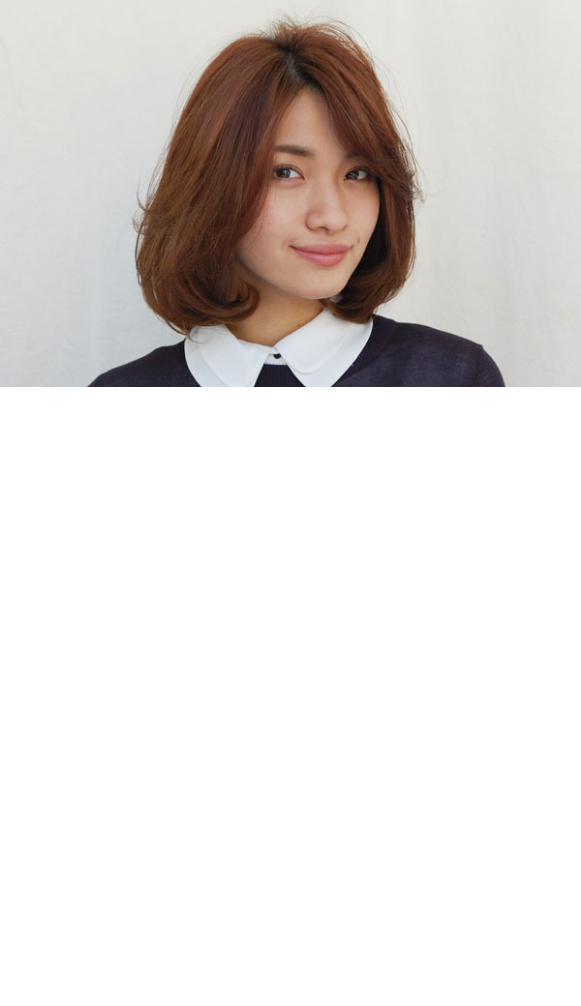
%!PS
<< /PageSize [581 1006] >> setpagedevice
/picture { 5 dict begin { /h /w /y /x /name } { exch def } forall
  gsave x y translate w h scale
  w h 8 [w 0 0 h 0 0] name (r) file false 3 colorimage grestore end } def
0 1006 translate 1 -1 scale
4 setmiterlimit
1 setgray
0 0 581 1006 rectfill
(img1.rgb) 0 0 581 387 picture
showpage
